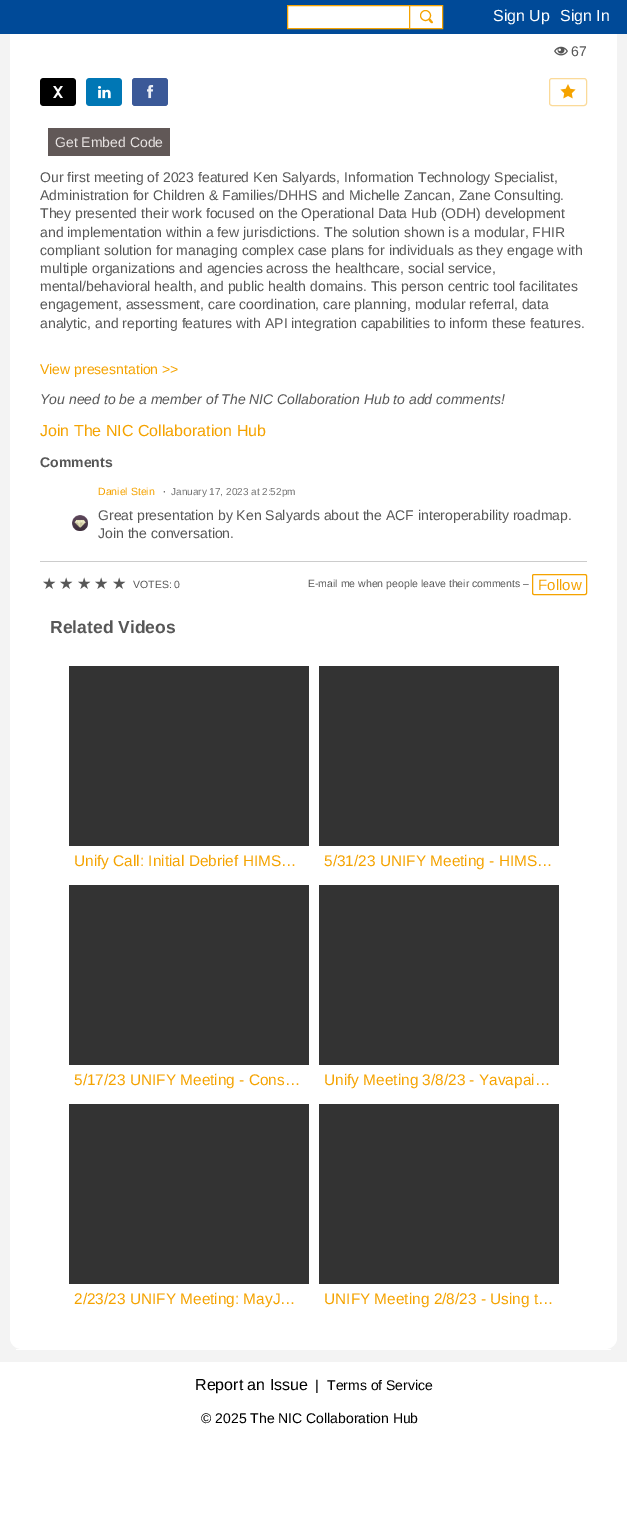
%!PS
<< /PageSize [627 1526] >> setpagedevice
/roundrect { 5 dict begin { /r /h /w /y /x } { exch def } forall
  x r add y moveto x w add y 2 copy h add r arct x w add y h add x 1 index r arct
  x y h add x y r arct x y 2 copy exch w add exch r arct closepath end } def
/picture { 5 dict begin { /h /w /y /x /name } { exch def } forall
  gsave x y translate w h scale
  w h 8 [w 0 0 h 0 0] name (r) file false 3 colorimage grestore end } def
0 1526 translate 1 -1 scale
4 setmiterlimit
1 setgray
0 0 627 1526 rectfill
0.953 setgray
0 34 627 1328 rectfill
1 setgray
newpath 22 -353 moveto 605 -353 lineto 612 -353 617 -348 617 -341 curveto 617 1338 lineto 617 1344 612 1349 605 1349 curveto 22 1349 lineto 15 1349 10 1344 10 1338 curveto 10 -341 lineto 10 -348 15 -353 22 -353 curveto closepath fill
0 0.29 0.596 setrgbcolor
0 0 627 34 rectfill
1 setgray
newpath 287.5 5.5 moveto 409.5 5.5 lineto 409.5 28.5 lineto 287.5 28.5 lineto closepath gsave fill grestore
0.961 0.639 0 setrgbcolor
stroke
1 setgray
newpath 409.5 5.5 moveto 442.5 5.5 lineto 442.5 28.5 lineto 409.5 28.5 lineto closepath gsave fill grestore
0.961 0.639 0 setrgbcolor
stroke
newpath 425.5 15.5 5 0 360 arc closepath stroke
newpath 430.5 19 moveto 432.5 21.5 lineto 433 22 433 22.5 432.5 23 curveto 431.5 24 429.5 21.5 429 20.5 curveto 428 19.5 429.5 18.5 430.5 19 curveto closepath fill
/LiberationSans-Regular [16 0 0 -16 0 0] selectfont
1 setgray
493 21 moveto (Sign Up) show
560 21 moveto (Sign In) show
16 1349 595 1 rectfill
(img1.rgb) 554 46 14 10 picture
/LiberationSans-Regular [14 0 0 -14 0 0] selectfont
0.341 setgray
571 56 moveto (67) show
(img2.rgb) 40 78 36 28 picture
(img3.rgb) 86 78 36 28 picture
0.231 0.349 0.596 setrgbcolor
132 78 36 28 3 roundrect fill
(img4.rgb) 132 78 36 28 picture
0.984 0.855 0.6 setrgbcolor
549.5 78.5 37 27 2.5 roundrect stroke
(img5.rgb) 560 84 16 15 picture
0.38 0.345 0.341 setrgbcolor
48 128 122 28 rectfill
0.91 0.894 0.89 setrgbcolor
55 147 moveto (Get Embed Code) show
0.341 setgray
40 182 moveto (Our first meeting of 2023 featured Ken Salyards, Information Technology Specialist,) show
40 200 moveto (Administration for Children & Families/DHHS and Michelle Zancan, Zane Consulting.) show
40 218 moveto (They presented their work focused on the Operational Data Hub \(ODH\) development) show
40 237 moveto (and implementation within a few jurisdictions. The solution shown is a modular, FHIR) show
40 255 moveto (compliant solution for managing complex case plans for individuals as they engage with) show
40 273 moveto (multiple organizations and agencies across the healthcare, social service,) show
40 291 moveto (mental/behavioral health, and public health domains. This person centric tool facilitates) show
40 309 moveto (engagement, assessment, care coordination, care planning, modular referral, data) show
40 328 moveto (analytic, and reporting features with API integration capabilities to inform these features.) show
0.961 0.639 0 setrgbcolor
40 374 moveto (View presesntation >>) show
/LiberationSans-Italic [14 0 0 -14 0 0] selectfont
0.341 setgray
40 404 moveto (You need to be a member of The NIC Collaboration Hub to add comments!) show
/LiberationSans-Regular [16 0 0 -16 0 0] selectfont
0.961 0.639 0 setrgbcolor
40 436 moveto (Join The NIC Collaboration Hub) show
/LiberationSans-Bold [14 0 0 -14 0 0] selectfont
0.341 setgray
40 467 moveto (Comments) show
(img6.rgb) 72 515 16 16 picture
/LiberationSans-Regular [10.5 0 0 -10.5 0 0] selectfont
0.961 0.639 0 setrgbcolor
98 495 moveto (Daniel Stein) show
/LiberationSans-Bold [10 0 0 -10 0 0] selectfont
0.443 setgray
163 495 moveto (·) show
/LiberationSans-Regular [10 0 0 -10 0 0] selectfont
171 495 moveto (January 17, 2023 at 2:52pm) show
/LiberationSans-Regular [14 0 0 -14 0 0] selectfont
0.341 setgray
98 520 moveto (Great presentation by Ken Salyards about the ACF interoperability roadmap.) show
98 538 moveto (Join the conversation.) show
0.8 setgray
40 561 547 1 rectfill
/DejaVuSans-Regular [16 0 0 -16 0 0] selectfont
0.341 setgray
42 589 moveto (★) show
59 589 moveto (★) show
77 589 moveto (★) show
94 589 moveto (★) show
112 589 moveto (★) show
/LiberationSans-Regular [10.5 0 0 -10.5 0 0] selectfont
133 588 moveto (VOTES: 0) show
308 587 moveto (E-mail me when people leave their comments –) show
0.961 0.639 0 setrgbcolor
532.5 574.5 54 20 1.5 roundrect stroke
/LiberationSans-Regular [15 0 0 -15 0 0] selectfont
538 590 moveto (Follow) show
/LiberationSans-Bold [17.5 0 0 -17.5 0 0] selectfont
0.341 setgray
50 633 moveto (Related Videos) show
0.2 setgray
69 666 240 180 rectfill
/LiberationSans-Regular [15.4 0 0 -15.4 0 0] selectfont
0.961 0.639 0 setrgbcolor
74 866 moveto (Unify Call: Initial Debrief HIMS…) show
0.2 setgray
319 666 240 180 rectfill
0.961 0.639 0 setrgbcolor
324 866 moveto (5/31/23 UNIFY Meeting - HIMS…) show
0.2 setgray
69 885 240 180 rectfill
0.961 0.639 0 setrgbcolor
74 1085 moveto (5/17/23 UNIFY Meeting - Cons…) show
0.2 setgray
319 885 240 180 rectfill
0.961 0.639 0 setrgbcolor
324 1085 moveto (Unify Meeting 3/8/23 - Yavapai…) show
0.2 setgray
69 1104 240 180 rectfill
0.961 0.639 0 setrgbcolor
74 1304 moveto (2/23/23 UNIFY Meeting: MayJ…) show
0.2 setgray
319 1104 240 180 rectfill
0.961 0.639 0 setrgbcolor
324 1304 moveto (UNIFY Meeting 2/8/23 - Using t…) show
/LiberationSans-Regular [16 0 0 -16 0 0] selectfont
0 setgray
195 1390 moveto (Report an Issue) show
/LiberationSans-Regular [14 0 0 -14 0 0] selectfont
315 1390 moveto (|) show
327 1390 moveto (Terms of Service) show
201 1423 moveto (© 2025 The NIC Collaboration Hub) show
showpage
